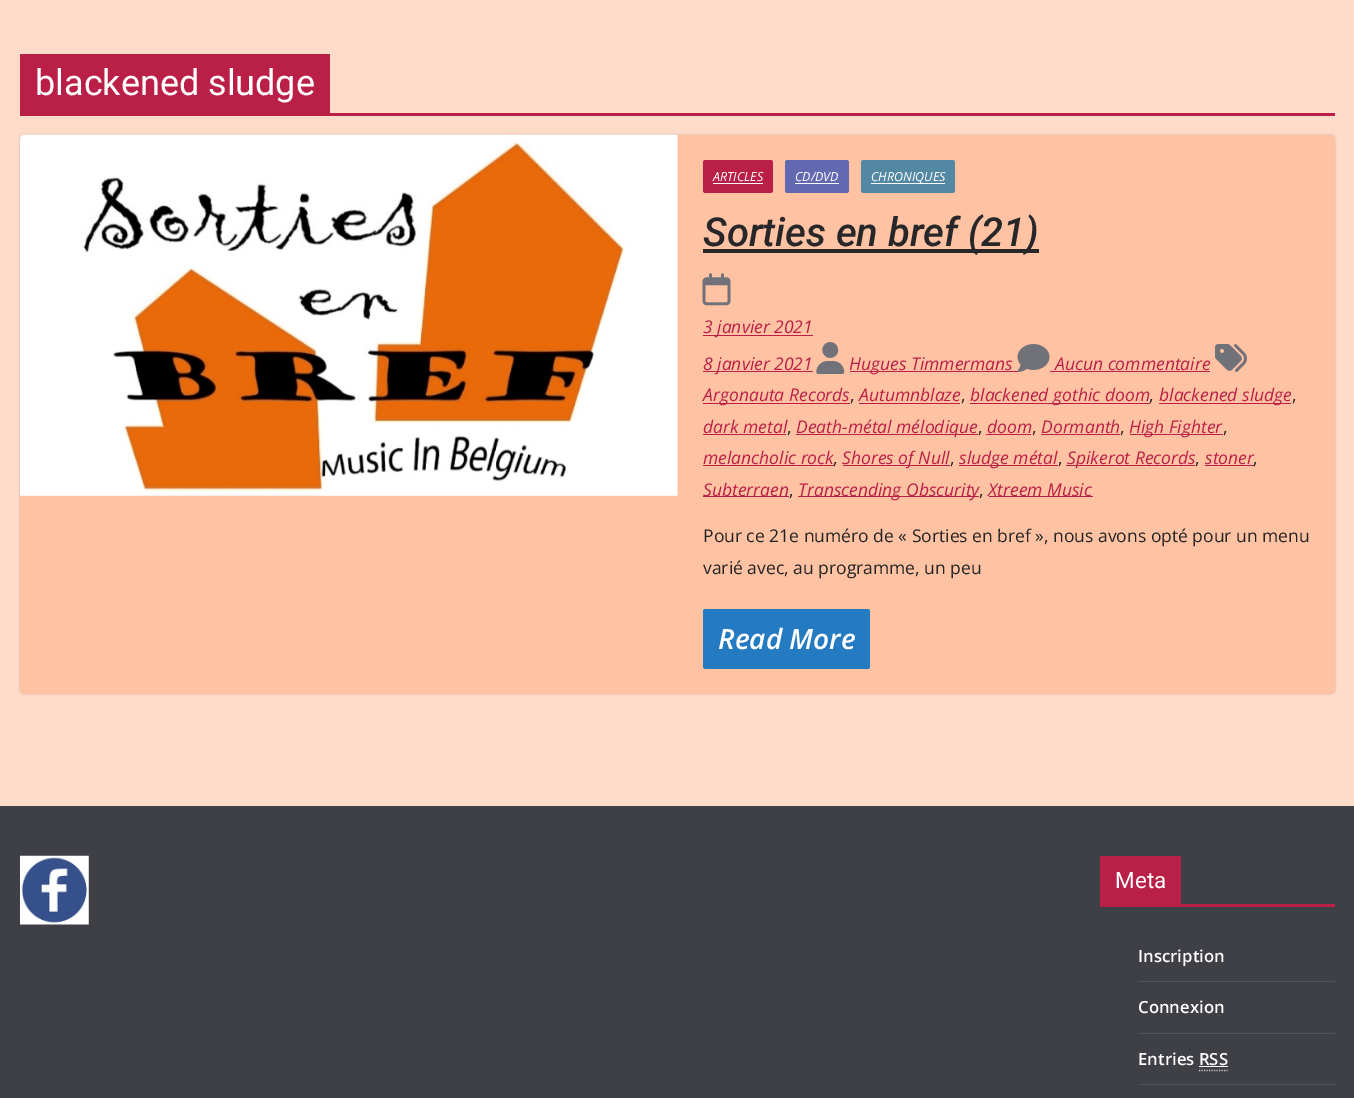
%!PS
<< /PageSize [1354 1098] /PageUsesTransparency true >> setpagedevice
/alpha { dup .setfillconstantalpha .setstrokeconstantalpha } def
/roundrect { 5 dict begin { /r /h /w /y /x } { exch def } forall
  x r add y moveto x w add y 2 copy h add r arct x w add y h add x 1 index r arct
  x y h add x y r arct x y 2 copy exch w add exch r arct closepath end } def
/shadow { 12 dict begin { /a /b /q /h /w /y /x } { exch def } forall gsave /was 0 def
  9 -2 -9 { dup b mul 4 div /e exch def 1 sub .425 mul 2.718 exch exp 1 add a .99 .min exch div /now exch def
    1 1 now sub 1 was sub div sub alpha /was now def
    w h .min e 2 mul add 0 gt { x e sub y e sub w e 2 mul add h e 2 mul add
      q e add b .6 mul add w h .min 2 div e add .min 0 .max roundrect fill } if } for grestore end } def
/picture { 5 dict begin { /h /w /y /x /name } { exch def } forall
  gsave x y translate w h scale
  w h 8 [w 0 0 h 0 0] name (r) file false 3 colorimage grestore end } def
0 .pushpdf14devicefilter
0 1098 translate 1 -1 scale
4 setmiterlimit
1 0.863 0.792 setrgbcolor
0 0 1354 1098 rectfill
0.729 0.125 0.278 setrgbcolor
20 113 1315 3 rectfill
20 54 310 59 rectfill
/Roboto-Regular [36 0 0 -36 0 0] selectfont
1 setgray
35 95 moveto (blackened sludge) show
0 setgray
20 135 1315 559 5 1 0.24 shadow
1 0.761 0.635 setrgbcolor
20 135 1315 559 5 roundrect fill
(img1.rgb) 20 134 658 362 picture
0.729 0.125 0.278 setrgbcolor
703 160 70 33 2.5 roundrect fill
/OpenSans-Italic [12.5 0 0 -12.5 0 0] selectfont
1 setgray
713 181 moveto (ARTICLES) show
713 183 50 1 rectfill
0.388 0.412 0.694 setrgbcolor
785 160 64 33 2.5 roundrect fill
1 setgray
795 181 moveto (CD/DVD) show
795 183 44 1 rectfill
0.325 0.533 0.635 setrgbcolor
861 160 94 33 2.5 roundrect fill
1 setgray
871 183 74 1 rectfill
871 181 moveto (CHRONIQUES) show
0.153 0.153 0.165 setrgbcolor
703 249 336 4 rectfill
/Roboto-MediumItalic [40 0 0 -40 0 0] selectfont
703 246 moveto (Sorties en bref \(21\)) show
(img2.rgb) 702 273 29 33 picture
0.729 0.125 0.278 setrgbcolor
703 335 110 1 rectfill
/OpenSans-Italic [17.5 0 0 -17.5 0 0] selectfont
703 333 moveto (3 janvier 2021) show
703 371 110 1 rectfill
703 370 moveto (8 janvier 2021) show
(img3.rgb) 816 342 29 32 picture
850 371 168 1 rectfill
849 370 moveto (Hugues Timmermans) show
(img4.rgb) 1017 344 33 28 picture
1055 370 moveto (Aucun commentaire) show
1050 371 160 1 rectfill
(img5.rgb) 1215 344 32 28 picture
703 403 147 1 rectfill
703 401 moveto (Argonauta Records) show
/OpenSans-Regular [17.5 0 0 -17.5 0 0] selectfont
0.137 setgray
850 401 moveto (,) show
/OpenSans-Italic [17.5 0 0 -17.5 0 0] selectfont
0.729 0.125 0.278 setrgbcolor
859 401 moveto (Autumnblaze) show
859 403 101 1 rectfill
/OpenSans-Regular [17.5 0 0 -17.5 0 0] selectfont
0.137 setgray
961 401 moveto (,) show
0.729 0.125 0.278 setrgbcolor
970 403 180 1 rectfill
/OpenSans-Italic [17.5 0 0 -17.5 0 0] selectfont
970 401 moveto (blackened gothic doom) show
/OpenSans-Regular [17.5 0 0 -17.5 0 0] selectfont
0.137 setgray
1149 401 moveto (,) show
0.729 0.125 0.278 setrgbcolor
1159 403 132 1 rectfill
/OpenSans-Italic [17.5 0 0 -17.5 0 0] selectfont
1159 401 moveto (blackened sludge) show
/OpenSans-Regular [17.5 0 0 -17.5 0 0] selectfont
0.137 setgray
1292 401 moveto (,) show
/OpenSans-Italic [17.5 0 0 -17.5 0 0] selectfont
0.729 0.125 0.278 setrgbcolor
703 433 moveto (dark metal) show
703 434 83 1 rectfill
/OpenSans-Regular [17.5 0 0 -17.5 0 0] selectfont
0.137 setgray
787 433 moveto (,) show
0.729 0.125 0.278 setrgbcolor
796 434 182 1 rectfill
/OpenSans-Italic [17.5 0 0 -17.5 0 0] selectfont
796 433 moveto (Death-métal mélodique) show
/OpenSans-Regular [17.5 0 0 -17.5 0 0] selectfont
0.137 setgray
978 433 moveto (,) show
/OpenSans-Italic [17.5 0 0 -17.5 0 0] selectfont
0.729 0.125 0.278 setrgbcolor
987 433 moveto (doom) show
986 434 45 1 rectfill
/OpenSans-Regular [17.5 0 0 -17.5 0 0] selectfont
0.137 setgray
1032 433 moveto (,) show
/OpenSans-Italic [17.5 0 0 -17.5 0 0] selectfont
0.729 0.125 0.278 setrgbcolor
1041 433 moveto (Dormanth) show
1041 434 79 1 rectfill
/OpenSans-Regular [17.5 0 0 -17.5 0 0] selectfont
0.137 setgray
1120 433 moveto (,) show
0.729 0.125 0.278 setrgbcolor
1130 434 93 1 rectfill
/OpenSans-Italic [17.5 0 0 -17.5 0 0] selectfont
1129 433 moveto (High Fighter) show
/OpenSans-Regular [17.5 0 0 -17.5 0 0] selectfont
0.137 setgray
1223 433 moveto (,) show
/OpenSans-Italic [17.5 0 0 -17.5 0 0] selectfont
0.729 0.125 0.278 setrgbcolor
703 464 moveto (melancholic rock) show
703 465 131 1 rectfill
/OpenSans-Regular [17.5 0 0 -17.5 0 0] selectfont
0.137 setgray
833 464 moveto (,) show
0.729 0.125 0.278 setrgbcolor
843 465 107 1 rectfill
/OpenSans-Italic [17.5 0 0 -17.5 0 0] selectfont
842 464 moveto (Shores of Null) show
/OpenSans-Regular [17.5 0 0 -17.5 0 0] selectfont
0.137 setgray
950 464 moveto (,) show
0.729 0.125 0.278 setrgbcolor
959 465 99 1 rectfill
/OpenSans-Italic [17.5 0 0 -17.5 0 0] selectfont
959 464 moveto (sludge métal) show
/OpenSans-Regular [17.5 0 0 -17.5 0 0] selectfont
0.137 setgray
1058 464 moveto (,) show
0.729 0.125 0.278 setrgbcolor
1066 465 129 1 rectfill
/OpenSans-Italic [17.5 0 0 -17.5 0 0] selectfont
1067 464 moveto (Spikerot Records) show
/OpenSans-Regular [17.5 0 0 -17.5 0 0] selectfont
0.137 setgray
1195 464 moveto (,) show
/OpenSans-Italic [17.5 0 0 -17.5 0 0] selectfont
0.729 0.125 0.278 setrgbcolor
1205 464 moveto (stoner) show
1205 465 49 1 rectfill
/OpenSans-Regular [17.5 0 0 -17.5 0 0] selectfont
0.137 setgray
1253 464 moveto (,) show
0.729 0.125 0.278 setrgbcolor
703 496 86 1 rectfill
/OpenSans-Italic [17.5 0 0 -17.5 0 0] selectfont
703 496 moveto (Subterraen) show
/OpenSans-Regular [17.5 0 0 -17.5 0 0] selectfont
0.137 setgray
789 496 moveto (,) show
0.729 0.125 0.278 setrgbcolor
798 496 181 1 rectfill
/OpenSans-Italic [17.5 0 0 -17.5 0 0] selectfont
798 496 moveto (Transcending Obscurity) show
/OpenSans-Regular [17.5 0 0 -17.5 0 0] selectfont
0.137 setgray
979 496 moveto (,) show
0.729 0.125 0.278 setrgbcolor
989 496 104 1 rectfill
/OpenSans-Italic [17.5 0 0 -17.5 0 0] selectfont
988 496 moveto (Xtreem Music) show
/OpenSans-Regular [17.5 0 0 -17.5 0 0] selectfont
0.137 setgray
703 542 moveto (Pour ce 21e numéro de « Sorties en bref », nous avons opté pour un menu) show
703 574 moveto (varié avec, au programme, un peu) show
0.145 0.482 0.757 setrgbcolor
703 609 167 60 2.5 roundrect fill
/OpenSans-SemiBoldItalic [28 0 0 -28 0 0] selectfont
1 setgray
718 649 moveto (Read More) show
0.247 0.247 0.275 setrgbcolor
0 806 1354 292 rectfill
(img6.rgb) 20 855 69 70 picture
0.729 0.125 0.278 setrgbcolor
1100 904 235 3 rectfill
1100 856 81 48 rectfill
/Roboto-Regular [22.5 0 0 -22.5 0 0] selectfont
1 setgray
1115 888 moveto (Meta) show
0.322 0.322 0.357 setrgbcolor
1138 981 197 1 rectfill
/OpenSans-SemiBold [16.75 0 0 -16.75 0 0] selectfont
1 setgray
1138 962 moveto (Inscription) show
0.322 0.322 0.357 setrgbcolor
1138 1033 197 1 rectfill
1 setgray
1138 1013 moveto (Connexion) show
0.322 0.322 0.357 setrgbcolor
1138 1084 197 1 rectfill
1 setgray
1138 1065 moveto (Entries RSS) show
0.78 setgray
1.2 setlinewidth
[1.25 1.25] 0 setdash
newpath 1199 1070.5 moveto 1227.5 1070.5 lineto stroke
1 setgray
1199 1066 29 1 rectfill
.poppdf14devicefilter showpage
